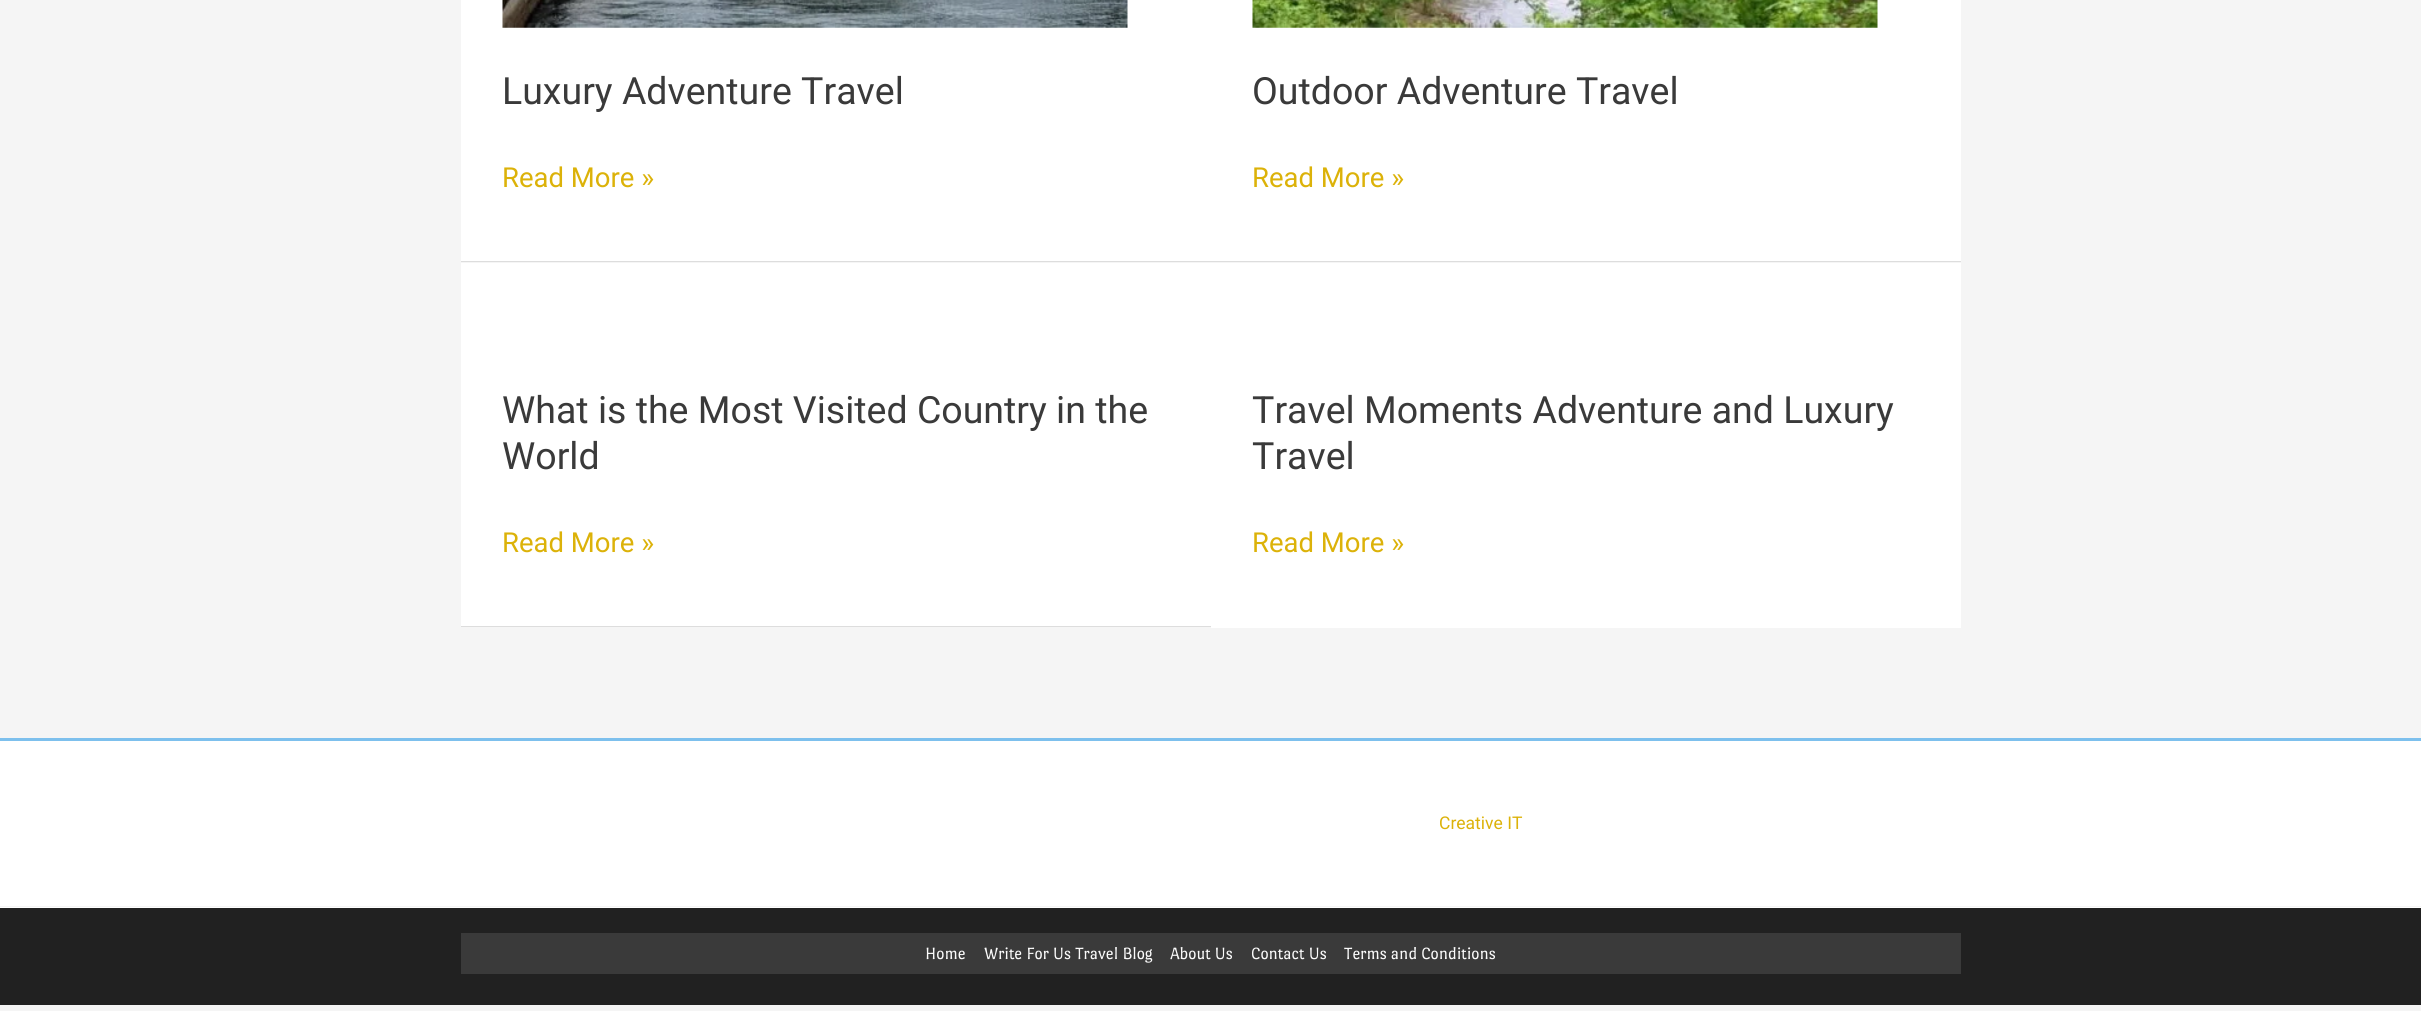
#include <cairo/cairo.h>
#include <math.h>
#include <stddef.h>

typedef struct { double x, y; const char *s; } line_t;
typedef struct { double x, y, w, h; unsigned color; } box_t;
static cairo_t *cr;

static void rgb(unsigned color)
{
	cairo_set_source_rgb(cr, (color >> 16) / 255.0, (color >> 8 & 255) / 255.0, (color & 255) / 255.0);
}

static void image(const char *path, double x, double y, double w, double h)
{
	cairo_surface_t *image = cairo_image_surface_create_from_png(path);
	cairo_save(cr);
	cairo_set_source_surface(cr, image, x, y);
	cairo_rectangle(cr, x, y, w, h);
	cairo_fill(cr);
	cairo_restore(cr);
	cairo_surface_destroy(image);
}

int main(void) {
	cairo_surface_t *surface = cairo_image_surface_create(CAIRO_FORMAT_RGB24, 2421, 1011);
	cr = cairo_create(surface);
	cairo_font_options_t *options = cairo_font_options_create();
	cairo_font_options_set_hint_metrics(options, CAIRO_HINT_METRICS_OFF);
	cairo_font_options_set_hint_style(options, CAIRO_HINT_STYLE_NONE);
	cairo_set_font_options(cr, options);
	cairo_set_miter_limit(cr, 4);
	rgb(0xf5f5f5);
	cairo_paint(cr);
	rgb(0xdddddd);
	cairo_rectangle(cr, 461, 261, 1500, 1);
	cairo_fill(cr);
	rgb(0xffffff);
	cairo_rectangle(cr, 461, 0, 1500, 261);
	cairo_fill(cr);
	image("img/1.png", 502, 0, 626, 28);
	image("img/2.png", 1252, 0, 626, 28);
	{
		static const box_t items[] = {
			{461, 626, 750, 1, 0xdddddd},
			{461, 263, 750, 363, 0xffffff},
			{1211, 263, 750, 365, 0xffffff},
			{0, 741, 2421, 167, 0xffffff},
			{0, 738, 2421, 3, 0x7dc0ed},
			{0, 908, 2421, 97, 0x212121},
			{0, 906, 2421, 1, 0xf5f5f5},
			{461, 933, 1500, 41, 0x3a3a3a},
		};
		for (size_t i = 0; i < sizeof items / sizeof *items; i++) {
			rgb(items[i].color);
			cairo_rectangle(cr, items[i].x, items[i].y, items[i].w, items[i].h);
			cairo_fill(cr);
		}
	}
	cairo_select_font_face(cr, "Roboto", CAIRO_FONT_SLANT_NORMAL, CAIRO_FONT_WEIGHT_NORMAL);
	cairo_set_font_size(cr, 37.5);
	cairo_move_to(cr, 502, 104);
	cairo_show_text(cr, "Luxury Adventure Travel");
	cairo_set_font_size(cr, 27.5);
	rgb(0xdcb209);
	cairo_move_to(cr, 502, 187);
	cairo_show_text(cr, "Read More »");
	cairo_set_font_size(cr, 37.5);
	rgb(0x3a3a3a);
	cairo_move_to(cr, 1252, 104);
	cairo_show_text(cr, "Outdoor Adventure Travel");
	cairo_set_font_size(cr, 27.5);
	rgb(0xdcb209);
	cairo_move_to(cr, 1252, 187);
	cairo_show_text(cr, "Read More »");
	cairo_set_font_size(cr, 37.5);
	rgb(0x3a3a3a);
	cairo_move_to(cr, 502, 423);
	cairo_show_text(cr, "What is the Most Visited Country in the");
	cairo_move_to(cr, 502, 469);
	cairo_show_text(cr, "World");
	cairo_set_font_size(cr, 27.5);
	rgb(0xdcb209);
	cairo_move_to(cr, 502, 552);
	cairo_show_text(cr, "Read More »");
	cairo_set_font_size(cr, 37.5);
	rgb(0x3a3a3a);
	cairo_move_to(cr, 1252, 423);
	cairo_show_text(cr, "Travel Moments Adventure and Luxury");
	cairo_move_to(cr, 1252, 469);
	cairo_show_text(cr, "Travel");
	cairo_set_font_size(cr, 27.5);
	rgb(0xdcb209);
	cairo_move_to(cr, 1252, 552);
	cairo_show_text(cr, "Read More »");
	cairo_set_font_size(cr, 17.5);
	cairo_move_to(cr, 1439, 829);
	cairo_show_text(cr, "Creative IT");
	cairo_select_font_face(cr, "Port Lligat Sans", CAIRO_FONT_SLANT_NORMAL, CAIRO_FONT_WEIGHT_NORMAL);
	rgb(0xfbfbfb);
	{
		static const line_t items[] = {
			{925, 959, "Home"},
			{984, 959, "Write For Us Travel Blog"},
			{1170, 959, "About Us"},
			{1251, 959, "Contact Us"},
			{1344, 959, "Terms and Conditions"},
		};
		for (size_t i = 0; i < sizeof items / sizeof *items; i++) {
			cairo_move_to(cr, items[i].x, items[i].y);
			cairo_show_text(cr, items[i].s);
		}
	}
	cairo_surface_write_to_png(surface, "page.png");
	cairo_font_options_destroy(options);
	cairo_destroy(cr);
	cairo_surface_destroy(surface);
	return 0;
}
